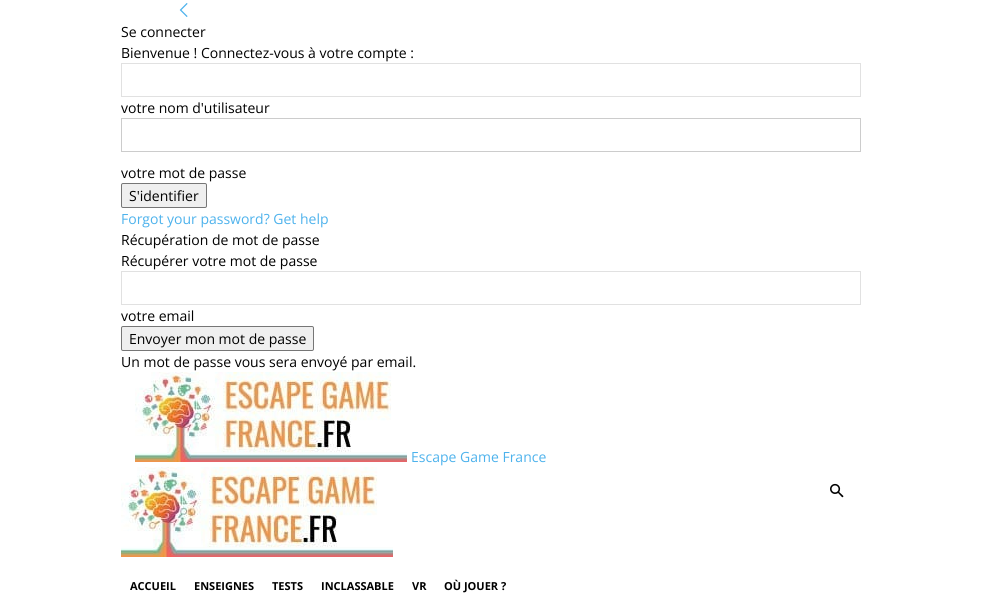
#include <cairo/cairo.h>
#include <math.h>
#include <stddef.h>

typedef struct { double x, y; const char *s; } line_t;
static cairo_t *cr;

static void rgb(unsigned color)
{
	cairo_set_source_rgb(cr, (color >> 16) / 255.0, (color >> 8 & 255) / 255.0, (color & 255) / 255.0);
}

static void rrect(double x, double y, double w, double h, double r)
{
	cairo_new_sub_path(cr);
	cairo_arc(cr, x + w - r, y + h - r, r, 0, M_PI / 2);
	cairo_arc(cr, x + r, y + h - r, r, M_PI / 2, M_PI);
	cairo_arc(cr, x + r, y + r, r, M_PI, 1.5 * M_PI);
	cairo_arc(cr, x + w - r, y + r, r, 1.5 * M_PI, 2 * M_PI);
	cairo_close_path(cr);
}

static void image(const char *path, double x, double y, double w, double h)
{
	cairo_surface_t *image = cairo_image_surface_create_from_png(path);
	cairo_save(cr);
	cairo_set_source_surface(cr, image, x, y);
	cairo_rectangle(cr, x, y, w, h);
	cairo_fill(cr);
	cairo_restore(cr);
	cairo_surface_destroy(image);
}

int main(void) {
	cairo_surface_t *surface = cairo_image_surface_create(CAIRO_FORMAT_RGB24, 982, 595);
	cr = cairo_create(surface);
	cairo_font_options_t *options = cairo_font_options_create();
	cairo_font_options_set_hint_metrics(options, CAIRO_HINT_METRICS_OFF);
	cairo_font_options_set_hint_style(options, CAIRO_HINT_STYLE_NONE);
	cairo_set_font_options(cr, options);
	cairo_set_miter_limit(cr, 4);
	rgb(0xffffff);
	cairo_paint(cr);
	image("img/1.png", 179, 3, 9, 14);
	cairo_rectangle(cr, 121.5, 63.5, 739, 33);
	rgb(0xe1e1e1);
	cairo_set_line_width(cr, 1);
	cairo_stroke(cr);
	cairo_rectangle(cr, 121.5, 118.5, 739, 33);
	rgb(0xcccccc);
	cairo_stroke(cr);
	rgb(0xefefef);
	rrect(121.5, 183.5, 85, 24, 1.5);
	cairo_fill_preserve(cr);
	rgb(0x767676);
	cairo_stroke(cr);
	cairo_rectangle(cr, 121.5, 271.5, 739, 33);
	rgb(0xe1e1e1);
	cairo_stroke(cr);
	rgb(0xefefef);
	rrect(121.5, 326.5, 192, 24, 1.5);
	cairo_fill_preserve(cr);
	rgb(0x767676);
	cairo_stroke(cr);
	image("img/2.png", 135, 372, 272, 90);
	image("img/3.png", 830, 483, 14, 15);
	image("img/2.png", 121, 467, 272, 90);
	cairo_select_font_face(cr, "Open Sans", CAIRO_FONT_SLANT_NORMAL, CAIRO_FONT_WEIGHT_NORMAL);
	cairo_set_font_size(cr, 14);
	rgb(0x000000);
	{
		static const line_t items[] = {
			{121, 37, "Se connecter"},
			{121, 58, "Bienvenue ! Connectez-vous à votre compte :"},
			{121, 113, "votre nom d'utilisateur"},
			{121, 178, "votre mot de passe"},
			{129, 201, "S'identifier"},
		};
		for (size_t i = 0; i < sizeof items / sizeof *items; i++) {
			cairo_move_to(cr, items[i].x, items[i].y);
			cairo_show_text(cr, items[i].s);
		}
	}
	rgb(0x4db2ec);
	cairo_move_to(cr, 121, 224);
	cairo_show_text(cr, "Forgot your password? Get help");
	rgb(0x000000);
	{
		static const line_t items[] = {
			{121, 245, "Récupération de mot de passe"},
			{121, 266, "Récupérer votre mot de passe"},
			{121, 321, "votre email"},
			{129, 344, "Envoyer mon mot de passe"},
			{121, 367, "Un mot de passe vous sera envoyé par email."},
		};
		for (size_t i = 0; i < sizeof items / sizeof *items; i++) {
			cairo_move_to(cr, items[i].x, items[i].y);
			cairo_show_text(cr, items[i].s);
		}
	}
	rgb(0x4db2ec);
	cairo_move_to(cr, 411, 462);
	cairo_show_text(cr, "Escape Game France");
	cairo_select_font_face(cr, "Open Sans", CAIRO_FONT_SLANT_NORMAL, CAIRO_FONT_WEIGHT_BOLD);
	cairo_set_font_size(cr, 11);
	rgb(0x000000);
	{
		static const line_t items[] = {
			{130, 590, "ACCUEIL"},
			{194, 590, "ENSEIGNES"},
			{272, 590, "TESTS"},
			{321, 590, "INCLASSABLE"},
			{412, 590, "VR"},
			{444, 590, "OÙ JOUER ?"},
		};
		for (size_t i = 0; i < sizeof items / sizeof *items; i++) {
			cairo_move_to(cr, items[i].x, items[i].y);
			cairo_show_text(cr, items[i].s);
		}
	}
	cairo_surface_write_to_png(surface, "page.png");
	cairo_font_options_destroy(options);
	cairo_destroy(cr);
	cairo_surface_destroy(surface);
	return 0;
}
